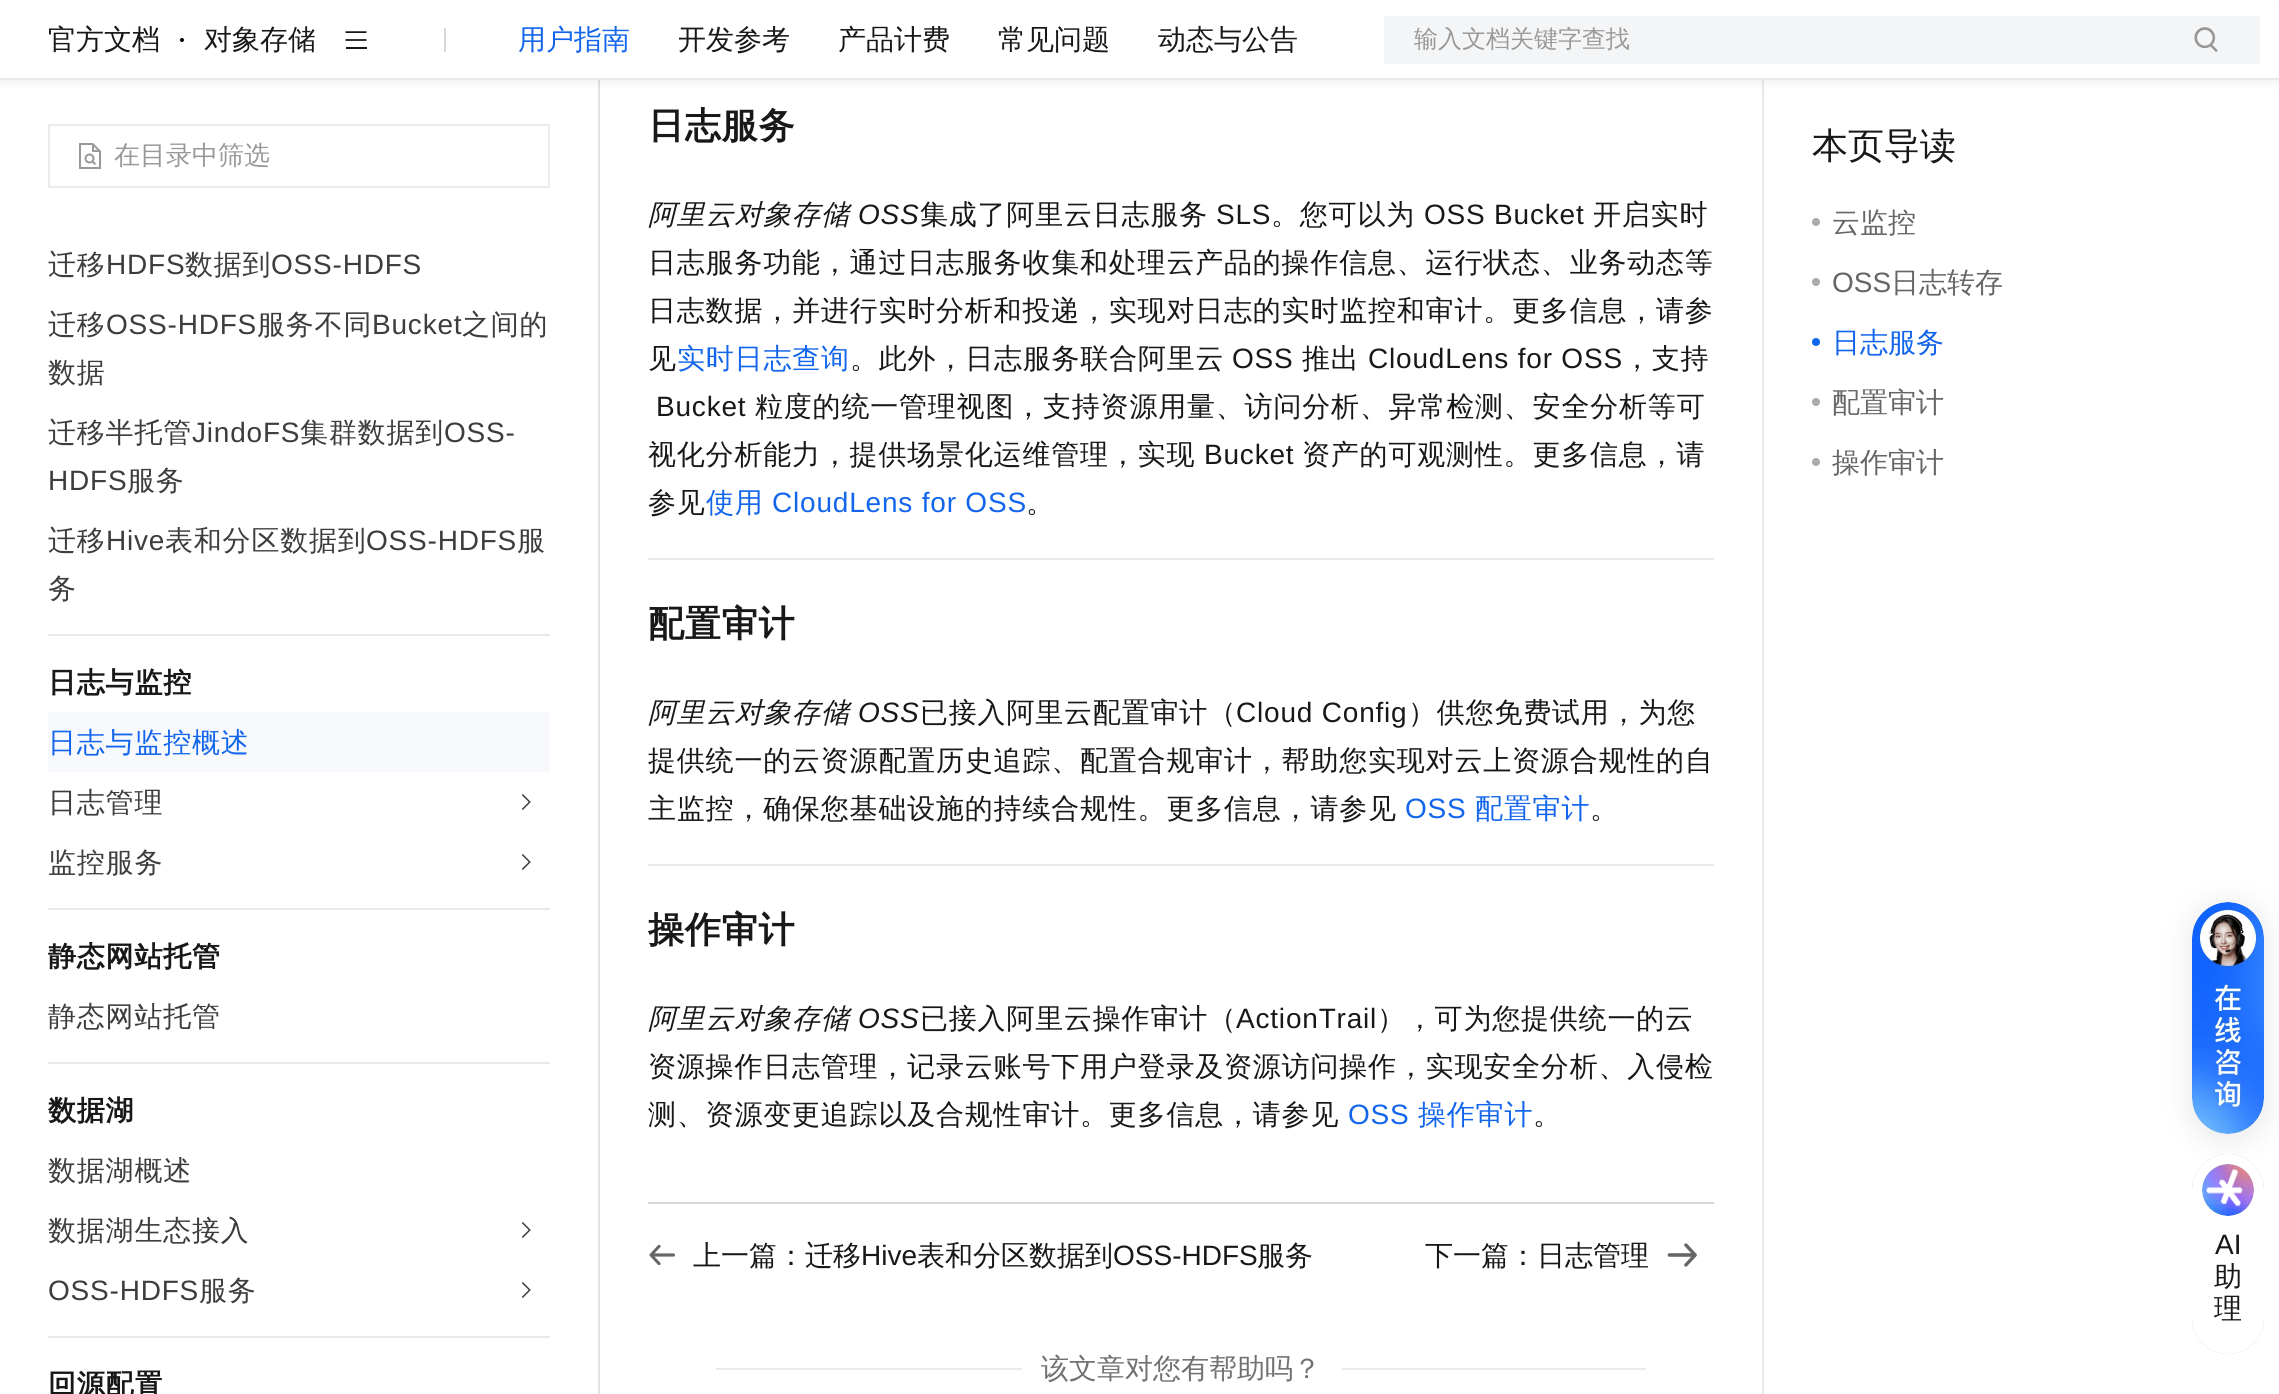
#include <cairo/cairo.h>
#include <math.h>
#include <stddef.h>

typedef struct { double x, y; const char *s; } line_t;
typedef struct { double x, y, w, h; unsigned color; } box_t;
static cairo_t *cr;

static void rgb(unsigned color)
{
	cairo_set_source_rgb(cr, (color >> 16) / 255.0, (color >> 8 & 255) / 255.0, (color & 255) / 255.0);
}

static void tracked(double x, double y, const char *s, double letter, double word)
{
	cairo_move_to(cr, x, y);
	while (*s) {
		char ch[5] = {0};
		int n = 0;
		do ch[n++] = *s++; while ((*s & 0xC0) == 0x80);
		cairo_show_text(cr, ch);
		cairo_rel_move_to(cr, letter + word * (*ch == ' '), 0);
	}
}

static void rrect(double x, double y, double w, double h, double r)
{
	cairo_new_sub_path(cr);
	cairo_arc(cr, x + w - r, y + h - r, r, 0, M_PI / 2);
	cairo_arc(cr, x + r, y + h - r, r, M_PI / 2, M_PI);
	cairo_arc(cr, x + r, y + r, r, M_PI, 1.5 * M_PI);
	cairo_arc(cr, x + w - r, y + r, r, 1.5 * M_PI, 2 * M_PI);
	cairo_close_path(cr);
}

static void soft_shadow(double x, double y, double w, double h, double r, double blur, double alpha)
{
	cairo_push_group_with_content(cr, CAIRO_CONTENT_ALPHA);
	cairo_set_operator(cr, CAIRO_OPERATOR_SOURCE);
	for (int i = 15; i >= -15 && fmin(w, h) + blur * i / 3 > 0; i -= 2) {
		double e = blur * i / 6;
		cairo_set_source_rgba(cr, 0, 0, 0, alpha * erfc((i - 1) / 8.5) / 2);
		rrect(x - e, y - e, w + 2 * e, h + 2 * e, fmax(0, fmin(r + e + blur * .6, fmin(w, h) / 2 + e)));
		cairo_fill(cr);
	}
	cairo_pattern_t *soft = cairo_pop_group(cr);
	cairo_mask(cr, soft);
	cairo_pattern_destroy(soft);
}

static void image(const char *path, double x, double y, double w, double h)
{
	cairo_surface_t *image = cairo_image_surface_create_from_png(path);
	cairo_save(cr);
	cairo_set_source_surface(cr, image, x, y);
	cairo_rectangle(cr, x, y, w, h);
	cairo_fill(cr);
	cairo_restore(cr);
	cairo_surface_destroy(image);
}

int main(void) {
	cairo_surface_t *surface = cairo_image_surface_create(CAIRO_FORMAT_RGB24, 2279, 1394);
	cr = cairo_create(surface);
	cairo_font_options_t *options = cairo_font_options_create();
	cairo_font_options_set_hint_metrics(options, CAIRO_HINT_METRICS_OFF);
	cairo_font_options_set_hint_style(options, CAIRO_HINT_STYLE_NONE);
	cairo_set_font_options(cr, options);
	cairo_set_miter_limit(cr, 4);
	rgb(0xffffff);
	cairo_paint(cr);
	rgb(0xe3e3e3);
	cairo_rectangle(cr, 598, 80, 2, 1314);
	cairo_fill(cr);
	rgb(0xe9e9e9);
	cairo_rectangle(cr, 1762, 80, 2, 1314);
	cairo_fill(cr);
	rgb(0x000000);
	soft_shadow(0, 4, 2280, 80, 0, 4, 0.05);
	{
		static const box_t items[] = {
			{0, 1, 2279, 77, 0xffffff},
			{0, 78, 2279, 2, 0xe9e9e9},
			{444, 28, 2, 24, 0xd7d8d9},
		};
		for (size_t i = 0; i < sizeof items / sizeof *items; i++) {
			rgb(items[i].color);
			cairo_rectangle(cr, items[i].x, items[i].y, items[i].w, items[i].h);
			cairo_fill(cr);
		}
	}
	rgb(0x000000);
	cairo_arc(cr, 182, 40, 2, 0, 2 * M_PI);
	cairo_fill(cr);
	image("img/1.png", 345, 31, 22, 18);
	rgb(0xf4f5f7);
	cairo_rectangle(cr, 1384, 16, 876, 48);
	cairo_fill(cr);
	image("img/2.png", 2194, 27, 24, 25);
	cairo_rectangle(cr, 49, 125, 500, 62);
	rgb(0xeaeaea);
	cairo_stroke(cr);
	image("img/3.png", 79, 143, 22, 26);
	{
		static const box_t items[] = {
			{48, 634, 502, 2, 0xe9e9e9},
			{48, 908, 502, 2, 0xe9e9e9},
			{48, 712, 502, 60, 0xf7f9fc},
		};
		for (size_t i = 0; i < sizeof items / sizeof *items; i++) {
			rgb(items[i].color);
			cairo_rectangle(cr, items[i].x, items[i].y, items[i].w, items[i].h);
			cairo_fill(cr);
		}
	}
	image("img/4.png", 521, 794, 10, 16);
	image("img/4.png", 521, 854, 10, 16);
	rgb(0xe9e9e9);
	cairo_rectangle(cr, 48, 1062, 502, 2);
	cairo_fill(cr);
	cairo_rectangle(cr, 48, 1336, 502, 2);
	cairo_fill(cr);
	image("img/4.png", 521, 1222, 10, 16);
	image("img/4.png", 521, 1282, 10, 16);
	{
		static const box_t items[] = {
			{648, 558, 1066, 2, 0xe9e9e9},
			{648, 864, 1066, 2, 0xe9e9e9},
			{648, 1202, 1066, 2, 0xd7d8d9},
		};
		for (size_t i = 0; i < sizeof items / sizeof *items; i++) {
			rgb(items[i].color);
			cairo_rectangle(cr, items[i].x, items[i].y, items[i].w, items[i].h);
			cairo_fill(cr);
		}
	}
	image("img/5.png", 649, 1244, 26, 22);
	image("img/6.png", 1667, 1243, 30, 24);
	rgb(0xeaeaea);
	cairo_rectangle(cr, 716, 1368, 306, 2);
	cairo_fill(cr);
	cairo_rectangle(cr, 1342, 1368, 304, 2);
	cairo_fill(cr);
	rgb(0xababab);
	cairo_arc(cr, 1816, 222, 4, 0, 2 * M_PI);
	cairo_fill(cr);
	cairo_arc(cr, 1816, 282, 4, 0, 2 * M_PI);
	cairo_fill(cr);
	rgb(0x1366ec);
	cairo_arc(cr, 1816, 342, 4, 0, 2 * M_PI);
	cairo_fill(cr);
	rgb(0xababab);
	cairo_arc(cr, 1816, 402, 4, 0, 2 * M_PI);
	cairo_fill(cr);
	cairo_arc(cr, 1816, 462, 4, 0, 2 * M_PI);
	cairo_fill(cr);
	rgb(0x000000);
	soft_shadow(2192, 906, 72, 232, 36, 15, 0.1);
	image("img/7.png", 2192, 902, 72, 232);
	cairo_save(cr);
	rrect(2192, 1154, 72, 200, 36);
	cairo_clip(cr);
	rgb(0x25a5ff);
	soft_shadow(2092, 1054, 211, 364, 0, 8, 0.25);
	rgb(0x7b47ff);
	soft_shadow(2092, 1054, 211, 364, 0, 8, 0.1);
	rgb(0xff6432);
	soft_shadow(2092, 1054, 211, 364, 0, 8, 0.09);
	rgb(0x1548ff);
	soft_shadow(2092, 1054, 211, 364, 0, 8, 0.08);
	cairo_restore(cr);
	rgb(0xffffff);
	rrect(2192, 1154, 72, 200, 36);
	cairo_fill(cr);
	image("img/8.png", 2202, 1164, 52, 52);
	image("img/9.png", 2206, 1169, 37, 38);
	cairo_select_font_face(cr, "WenQuanYi Zen Hei Medium", CAIRO_FONT_SLANT_NORMAL, CAIRO_FONT_WEIGHT_NORMAL);
	cairo_set_font_size(cr, 28);
	rgb(0x181818);
	cairo_move_to(cr, 48, 49);
	cairo_show_text(cr, "官方文档");
	cairo_move_to(cr, 204, 49);
	cairo_show_text(cr, "对象存储");
	rgb(0x1366ec);
	cairo_move_to(cr, 518, 49);
	cairo_show_text(cr, "用户指南");
	rgb(0x181818);
	{
		static const line_t items[] = {
			{678, 49, "开发参考"},
			{838, 49, "产品计费"},
			{998, 49, "常见问题"},
			{1158, 49, "动态与公告"},
		};
		for (size_t i = 0; i < sizeof items / sizeof *items; i++) {
			cairo_move_to(cr, items[i].x, items[i].y);
			cairo_show_text(cr, items[i].s);
		}
	}
	cairo_set_font_size(cr, 24);
	rgb(0x999999);
	cairo_move_to(cr, 1414, 47);
	cairo_show_text(cr, "输入文档关键字查找");
	cairo_set_font_size(cr, 26);
	cairo_move_to(cr, 114, 164);
	cairo_show_text(cr, "在目录中筛选");
	cairo_set_font_size(cr, 28);
	rgb(0x3d3d3d);
	tracked(48, 274, "迁移", 0.8, 0);
	cairo_select_font_face(cr, "Liberation Sans", CAIRO_FONT_SLANT_NORMAL, CAIRO_FONT_WEIGHT_NORMAL);
	tracked(106, 274, "HDFS", 0.8, 0);
	cairo_select_font_face(cr, "WenQuanYi Zen Hei Medium", CAIRO_FONT_SLANT_NORMAL, CAIRO_FONT_WEIGHT_NORMAL);
	tracked(185, 274, "数据到", 0.8, 0);
	cairo_select_font_face(cr, "Liberation Sans", CAIRO_FONT_SLANT_NORMAL, CAIRO_FONT_WEIGHT_NORMAL);
	tracked(271, 274, "OSS-HDFS", 0.8, 0);
	cairo_select_font_face(cr, "WenQuanYi Zen Hei Medium", CAIRO_FONT_SLANT_NORMAL, CAIRO_FONT_WEIGHT_NORMAL);
	tracked(48, 334, "迁移", 0.8, 0);
	cairo_select_font_face(cr, "Liberation Sans", CAIRO_FONT_SLANT_NORMAL, CAIRO_FONT_WEIGHT_NORMAL);
	tracked(106, 334, "OSS-HDFS", 0.8, 0);
	cairo_select_font_face(cr, "WenQuanYi Zen Hei Medium", CAIRO_FONT_SLANT_NORMAL, CAIRO_FONT_WEIGHT_NORMAL);
	tracked(257, 334, "服务不同", 0.8, 0);
	cairo_select_font_face(cr, "Liberation Sans", CAIRO_FONT_SLANT_NORMAL, CAIRO_FONT_WEIGHT_NORMAL);
	tracked(372, 334, "Bucket", 0.8, 0);
	cairo_select_font_face(cr, "WenQuanYi Zen Hei Medium", CAIRO_FONT_SLANT_NORMAL, CAIRO_FONT_WEIGHT_NORMAL);
	{
		static const line_t items[] = {
			{462, 334, "之间的"},
			{48, 382, "数据"},
			{48, 442, "迁移半托管"},
		};
		for (size_t i = 0; i < sizeof items / sizeof *items; i++) {
			tracked(items[i].x, items[i].y, items[i].s, 0.8, 0);
		}
	}
	cairo_select_font_face(cr, "Liberation Sans", CAIRO_FONT_SLANT_NORMAL, CAIRO_FONT_WEIGHT_NORMAL);
	tracked(192, 442, "JindoFS", 0.8, 0);
	cairo_select_font_face(cr, "WenQuanYi Zen Hei Medium", CAIRO_FONT_SLANT_NORMAL, CAIRO_FONT_WEIGHT_NORMAL);
	tracked(300, 442, "集群数据到", 0.8, 0);
	cairo_select_font_face(cr, "Liberation Sans", CAIRO_FONT_SLANT_NORMAL, CAIRO_FONT_WEIGHT_NORMAL);
	tracked(444, 442, "OSS-", 0.8, 0);
	tracked(48, 490, "HDFS", 0.8, 0);
	cairo_select_font_face(cr, "WenQuanYi Zen Hei Medium", CAIRO_FONT_SLANT_NORMAL, CAIRO_FONT_WEIGHT_NORMAL);
	tracked(127, 490, "服务", 0.8, 0);
	tracked(48, 550, "迁移", 0.8, 0);
	cairo_select_font_face(cr, "Liberation Sans", CAIRO_FONT_SLANT_NORMAL, CAIRO_FONT_WEIGHT_NORMAL);
	tracked(106, 550, "Hive", 0.8, 0);
	cairo_select_font_face(cr, "WenQuanYi Zen Hei Medium", CAIRO_FONT_SLANT_NORMAL, CAIRO_FONT_WEIGHT_NORMAL);
	tracked(165, 550, "表和分区数据到", 0.8, 0);
	cairo_select_font_face(cr, "Liberation Sans", CAIRO_FONT_SLANT_NORMAL, CAIRO_FONT_WEIGHT_NORMAL);
	tracked(366, 550, "OSS-HDFS", 0.8, 0);
	cairo_select_font_face(cr, "WenQuanYi Zen Hei Medium", CAIRO_FONT_SLANT_NORMAL, CAIRO_FONT_WEIGHT_NORMAL);
	tracked(517, 550, "服", 0.8, 0);
	tracked(48, 598, "务", 0.8, 0);
	cairo_select_font_face(cr, "WenQuanYi Zen Hei", CAIRO_FONT_SLANT_NORMAL, CAIRO_FONT_WEIGHT_BOLD);
	rgb(0x181818);
	tracked(48, 692, "日志与监控", 0.8, 0);
	cairo_select_font_face(cr, "WenQuanYi Zen Hei Medium", CAIRO_FONT_SLANT_NORMAL, CAIRO_FONT_WEIGHT_NORMAL);
	rgb(0x1366ec);
	tracked(48, 752, "日志与监控概述", 0.8, 0);
	rgb(0x3d3d3d);
	tracked(48, 812, "日志管理", 0.8, 0);
	tracked(48, 872, "监控服务", 0.8, 0);
	cairo_select_font_face(cr, "WenQuanYi Zen Hei", CAIRO_FONT_SLANT_NORMAL, CAIRO_FONT_WEIGHT_BOLD);
	rgb(0x181818);
	tracked(48, 966, "静态网站托管", 0.8, 0);
	cairo_select_font_face(cr, "WenQuanYi Zen Hei Medium", CAIRO_FONT_SLANT_NORMAL, CAIRO_FONT_WEIGHT_NORMAL);
	rgb(0x3d3d3d);
	tracked(48, 1026, "静态网站托管", 0.8, 0);
	cairo_select_font_face(cr, "WenQuanYi Zen Hei", CAIRO_FONT_SLANT_NORMAL, CAIRO_FONT_WEIGHT_BOLD);
	rgb(0x181818);
	tracked(48, 1120, "数据湖", 0.8, 0);
	cairo_select_font_face(cr, "WenQuanYi Zen Hei Medium", CAIRO_FONT_SLANT_NORMAL, CAIRO_FONT_WEIGHT_NORMAL);
	rgb(0x3d3d3d);
	tracked(48, 1180, "数据湖概述", 0.8, 0);
	tracked(48, 1240, "数据湖生态接入", 0.8, 0);
	cairo_select_font_face(cr, "Liberation Sans", CAIRO_FONT_SLANT_NORMAL, CAIRO_FONT_WEIGHT_NORMAL);
	tracked(48, 1300, "OSS-HDFS", 0.8, 0);
	cairo_select_font_face(cr, "WenQuanYi Zen Hei Medium", CAIRO_FONT_SLANT_NORMAL, CAIRO_FONT_WEIGHT_NORMAL);
	tracked(199, 1300, "服务", 0.8, 0);
	cairo_select_font_face(cr, "WenQuanYi Zen Hei", CAIRO_FONT_SLANT_NORMAL, CAIRO_FONT_WEIGHT_BOLD);
	rgb(0x181818);
	tracked(48, 1394, "回源配置", 0.8, 0);
	cairo_set_font_size(cr, 36);
	tracked(648, 138, "日志服务", 0.8, 0);
	cairo_select_font_face(cr, "WenQuanYi Zen Hei Medium", CAIRO_FONT_SLANT_ITALIC, CAIRO_FONT_WEIGHT_NORMAL);
	cairo_set_font_size(cr, 28);
	tracked(648, 224, "阿里云对象存储", 0.8, 0);
	cairo_select_font_face(cr, "Liberation Sans", CAIRO_FONT_SLANT_ITALIC, CAIRO_FONT_WEIGHT_NORMAL);
	tracked(858, 224, "OSS", 0.8, 0);
	cairo_select_font_face(cr, "WenQuanYi Zen Hei Medium", CAIRO_FONT_SLANT_NORMAL, CAIRO_FONT_WEIGHT_NORMAL);
	tracked(920, 224, "集成了阿里云日志服务", 0.8, 0);
	cairo_select_font_face(cr, "Liberation Sans", CAIRO_FONT_SLANT_NORMAL, CAIRO_FONT_WEIGHT_NORMAL);
	tracked(1216, 224, "SLS", 0.8, 0);
	cairo_select_font_face(cr, "WenQuanYi Zen Hei Medium", CAIRO_FONT_SLANT_NORMAL, CAIRO_FONT_WEIGHT_NORMAL);
	tracked(1271, 224, "。您可以为", 0.8, 0);
	cairo_select_font_face(cr, "Liberation Sans", CAIRO_FONT_SLANT_NORMAL, CAIRO_FONT_WEIGHT_NORMAL);
	tracked(1424, 224, "OSS Bucket", 0.8, 0);
	cairo_select_font_face(cr, "WenQuanYi Zen Hei Medium", CAIRO_FONT_SLANT_NORMAL, CAIRO_FONT_WEIGHT_NORMAL);
	{
		static const line_t items[] = {
			{1593, 224, "开启实时"},
			{648, 272, "日志服务功能，通过日志服务收集和处理云产品的操作信息、运行状态、业务动态等"},
			{648, 320, "日志数据，并进行实时分析和投递，实现对日志的实时监控和审计。更多信息，请参"},
			{648, 368, "见"},
		};
		for (size_t i = 0; i < sizeof items / sizeof *items; i++) {
			tracked(items[i].x, items[i].y, items[i].s, 0.8, 0);
		}
	}
	rgb(0x1366ec);
	tracked(677, 368, "实时日志查询", 0.8, 0);
	rgb(0x181818);
	tracked(850, 368, "。此外，日志服务联合阿里云", 0.8, 0);
	cairo_select_font_face(cr, "Liberation Sans", CAIRO_FONT_SLANT_NORMAL, CAIRO_FONT_WEIGHT_NORMAL);
	tracked(1232, 368, "OSS", 0.8, 0);
	cairo_select_font_face(cr, "WenQuanYi Zen Hei Medium", CAIRO_FONT_SLANT_NORMAL, CAIRO_FONT_WEIGHT_NORMAL);
	tracked(1302, 368, "推出", 0.8, 0);
	cairo_select_font_face(cr, "Liberation Sans", CAIRO_FONT_SLANT_NORMAL, CAIRO_FONT_WEIGHT_NORMAL);
	tracked(1368, 368, "CloudLens for OSS", 0.8, 0);
	cairo_select_font_face(cr, "WenQuanYi Zen Hei Medium", CAIRO_FONT_SLANT_NORMAL, CAIRO_FONT_WEIGHT_NORMAL);
	tracked(1623, 368, "，支持", 0.8, 0);
	cairo_select_font_face(cr, "Liberation Sans", CAIRO_FONT_SLANT_NORMAL, CAIRO_FONT_WEIGHT_NORMAL);
	tracked(656, 416, "Bucket", 0.8, 0);
	cairo_select_font_face(cr, "WenQuanYi Zen Hei Medium", CAIRO_FONT_SLANT_NORMAL, CAIRO_FONT_WEIGHT_NORMAL);
	tracked(755, 416, "粒度的统一管理视图，支持资源用量、访问分析、异常检测、安全分析等可", 0.8, 0);
	tracked(648, 464, "视化分析能力，提供场景化运维管理，实现", 0.8, 0);
	cairo_select_font_face(cr, "Liberation Sans", CAIRO_FONT_SLANT_NORMAL, CAIRO_FONT_WEIGHT_NORMAL);
	tracked(1204, 464, "Bucket", 0.8, 0);
	cairo_select_font_face(cr, "WenQuanYi Zen Hei Medium", CAIRO_FONT_SLANT_NORMAL, CAIRO_FONT_WEIGHT_NORMAL);
	tracked(1302, 464, "资产的可观测性。更多信息，请", 0.8, 0);
	tracked(648, 512, "参见", 0.8, 0);
	rgb(0x1366ec);
	tracked(706, 512, "使用", 0.8, 0);
	cairo_select_font_face(cr, "Liberation Sans", CAIRO_FONT_SLANT_NORMAL, CAIRO_FONT_WEIGHT_NORMAL);
	tracked(772, 512, "CloudLens for OSS", 0.8, 0);
	cairo_select_font_face(cr, "WenQuanYi Zen Hei Medium", CAIRO_FONT_SLANT_NORMAL, CAIRO_FONT_WEIGHT_NORMAL);
	rgb(0x181818);
	tracked(1026, 512, "。", 0.8, 0);
	cairo_select_font_face(cr, "WenQuanYi Zen Hei", CAIRO_FONT_SLANT_NORMAL, CAIRO_FONT_WEIGHT_BOLD);
	cairo_set_font_size(cr, 36);
	tracked(648, 636, "配置审计", 0.8, 0);
	cairo_select_font_face(cr, "WenQuanYi Zen Hei Medium", CAIRO_FONT_SLANT_ITALIC, CAIRO_FONT_WEIGHT_NORMAL);
	cairo_set_font_size(cr, 28);
	tracked(648, 722, "阿里云对象存储", 0.8, 0);
	cairo_select_font_face(cr, "Liberation Sans", CAIRO_FONT_SLANT_ITALIC, CAIRO_FONT_WEIGHT_NORMAL);
	tracked(858, 722, "OSS", 0.8, 0);
	cairo_select_font_face(cr, "WenQuanYi Zen Hei Medium", CAIRO_FONT_SLANT_NORMAL, CAIRO_FONT_WEIGHT_NORMAL);
	tracked(920, 722, "已接入阿里云配置审计（", 0.8, 0);
	cairo_select_font_face(cr, "Liberation Sans", CAIRO_FONT_SLANT_NORMAL, CAIRO_FONT_WEIGHT_NORMAL);
	tracked(1236, 722, "Cloud Config", 0.8, 0);
	cairo_select_font_face(cr, "WenQuanYi Zen Hei Medium", CAIRO_FONT_SLANT_NORMAL, CAIRO_FONT_WEIGHT_NORMAL);
	{
		static const line_t items[] = {
			{1408, 722, "）供您免费试用，为您"},
			{648, 770, "提供统一的云资源配置历史追踪、配置合规审计，帮助您实现对云上资源合规性的自"},
			{648, 818, "主监控，确保您基础设施的持续合规性。更多信息，请参见"},
		};
		for (size_t i = 0; i < sizeof items / sizeof *items; i++) {
			tracked(items[i].x, items[i].y, items[i].s, 0.8, 0);
		}
	}
	cairo_select_font_face(cr, "Liberation Sans", CAIRO_FONT_SLANT_NORMAL, CAIRO_FONT_WEIGHT_NORMAL);
	rgb(0x1366ec);
	tracked(1405, 818, "OSS", 0.8, 0);
	cairo_select_font_face(cr, "WenQuanYi Zen Hei Medium", CAIRO_FONT_SLANT_NORMAL, CAIRO_FONT_WEIGHT_NORMAL);
	tracked(1475, 818, "配置审计", 0.8, 0);
	rgb(0x181818);
	tracked(1590, 818, "。", 0.8, 0);
	cairo_select_font_face(cr, "WenQuanYi Zen Hei", CAIRO_FONT_SLANT_NORMAL, CAIRO_FONT_WEIGHT_BOLD);
	cairo_set_font_size(cr, 36);
	tracked(648, 942, "操作审计", 0.8, 0);
	cairo_select_font_face(cr, "WenQuanYi Zen Hei Medium", CAIRO_FONT_SLANT_ITALIC, CAIRO_FONT_WEIGHT_NORMAL);
	cairo_set_font_size(cr, 28);
	tracked(648, 1028, "阿里云对象存储", 0.8, 0);
	cairo_select_font_face(cr, "Liberation Sans", CAIRO_FONT_SLANT_ITALIC, CAIRO_FONT_WEIGHT_NORMAL);
	tracked(858, 1028, "OSS", 0.8, 0);
	cairo_select_font_face(cr, "WenQuanYi Zen Hei Medium", CAIRO_FONT_SLANT_NORMAL, CAIRO_FONT_WEIGHT_NORMAL);
	tracked(920, 1028, "已接入阿里云操作审计（", 0.8, 0);
	cairo_select_font_face(cr, "Liberation Sans", CAIRO_FONT_SLANT_NORMAL, CAIRO_FONT_WEIGHT_NORMAL);
	tracked(1236, 1028, "ActionTrail", 0.8, 0);
	cairo_select_font_face(cr, "WenQuanYi Zen Hei Medium", CAIRO_FONT_SLANT_NORMAL, CAIRO_FONT_WEIGHT_NORMAL);
	{
		static const line_t items[] = {
			{1377, 1028, "），可为您提供统一的云"},
			{648, 1076, "资源操作日志管理，记录云账号下用户登录及资源访问操作，实现安全分析、入侵检"},
			{648, 1124, "测、资源变更追踪以及合规性审计。更多信息，请参见"},
		};
		for (size_t i = 0; i < sizeof items / sizeof *items; i++) {
			tracked(items[i].x, items[i].y, items[i].s, 0.8, 0);
		}
	}
	cairo_select_font_face(cr, "Liberation Sans", CAIRO_FONT_SLANT_NORMAL, CAIRO_FONT_WEIGHT_NORMAL);
	rgb(0x1366ec);
	tracked(1348, 1124, "OSS", 0.8, 0);
	cairo_select_font_face(cr, "WenQuanYi Zen Hei Medium", CAIRO_FONT_SLANT_NORMAL, CAIRO_FONT_WEIGHT_NORMAL);
	tracked(1418, 1124, "操作审计", 0.8, 0);
	rgb(0x181818);
	tracked(1533, 1124, "。", 0.8, 0);
	cairo_move_to(cr, 693, 1265);
	cairo_show_text(cr, "上一篇：迁移");
	cairo_select_font_face(cr, "Liberation Sans", CAIRO_FONT_SLANT_NORMAL, CAIRO_FONT_WEIGHT_NORMAL);
	cairo_move_to(cr, 861, 1265);
	cairo_show_text(cr, "Hive");
	cairo_select_font_face(cr, "WenQuanYi Zen Hei Medium", CAIRO_FONT_SLANT_NORMAL, CAIRO_FONT_WEIGHT_NORMAL);
	cairo_move_to(cr, 917, 1265);
	cairo_show_text(cr, "表和分区数据到");
	cairo_select_font_face(cr, "Liberation Sans", CAIRO_FONT_SLANT_NORMAL, CAIRO_FONT_WEIGHT_NORMAL);
	cairo_move_to(cr, 1113, 1265);
	cairo_show_text(cr, "OSS-HDFS");
	cairo_select_font_face(cr, "WenQuanYi Zen Hei Medium", CAIRO_FONT_SLANT_NORMAL, CAIRO_FONT_WEIGHT_NORMAL);
	cairo_move_to(cr, 1257, 1265);
	cairo_show_text(cr, "服务");
	cairo_move_to(cr, 1425, 1265);
	cairo_show_text(cr, "下一篇：日志管理");
	rgb(0x717171);
	cairo_move_to(cr, 1041, 1378);
	cairo_show_text(cr, "该文章对您有帮助吗？");
	cairo_set_font_size(cr, 36);
	rgb(0x181818);
	cairo_move_to(cr, 1812, 158);
	cairo_show_text(cr, "本页导读");
	cairo_set_font_size(cr, 28);
	rgb(0x666666);
	cairo_move_to(cr, 1832, 232);
	cairo_show_text(cr, "云监控");
	cairo_select_font_face(cr, "Liberation Sans", CAIRO_FONT_SLANT_NORMAL, CAIRO_FONT_WEIGHT_NORMAL);
	cairo_move_to(cr, 1832, 292);
	cairo_show_text(cr, "OSS");
	cairo_select_font_face(cr, "WenQuanYi Zen Hei Medium", CAIRO_FONT_SLANT_NORMAL, CAIRO_FONT_WEIGHT_NORMAL);
	cairo_move_to(cr, 1891, 292);
	cairo_show_text(cr, "日志转存");
	rgb(0x1366ec);
	cairo_move_to(cr, 1832, 352);
	cairo_show_text(cr, "日志服务");
	rgb(0x666666);
	cairo_move_to(cr, 1832, 412);
	cairo_show_text(cr, "配置审计");
	cairo_move_to(cr, 1832, 472);
	cairo_show_text(cr, "操作审计");
	cairo_select_font_face(cr, "Liberation Sans", CAIRO_FONT_SLANT_NORMAL, CAIRO_FONT_WEIGHT_NORMAL);
	rgb(0x181818);
	cairo_move_to(cr, 2215, 1254);
	cairo_show_text(cr, "AI");
	cairo_select_font_face(cr, "WenQuanYi Zen Hei Medium", CAIRO_FONT_SLANT_NORMAL, CAIRO_FONT_WEIGHT_NORMAL);
	cairo_move_to(cr, 2214, 1286);
	cairo_show_text(cr, "助");
	cairo_move_to(cr, 2214, 1318);
	cairo_show_text(cr, "理");
	cairo_surface_write_to_png(surface, "page.png");
	cairo_font_options_destroy(options);
	cairo_destroy(cr);
	cairo_surface_destroy(surface);
	return 0;
}
